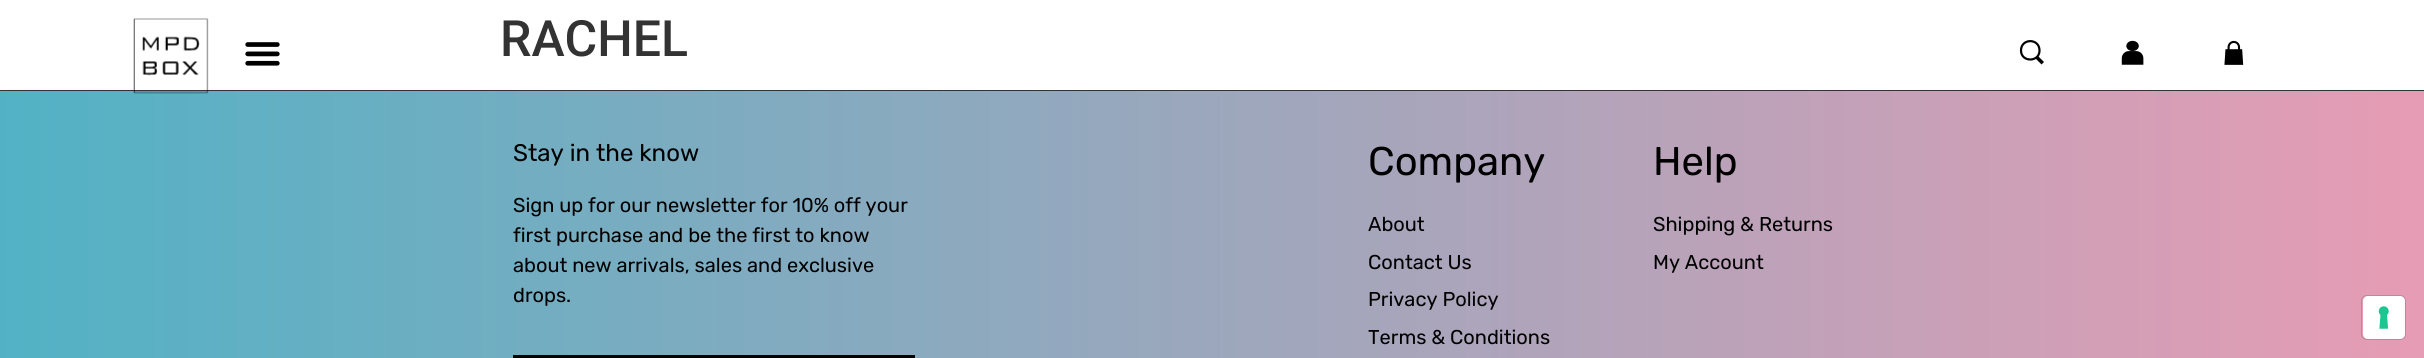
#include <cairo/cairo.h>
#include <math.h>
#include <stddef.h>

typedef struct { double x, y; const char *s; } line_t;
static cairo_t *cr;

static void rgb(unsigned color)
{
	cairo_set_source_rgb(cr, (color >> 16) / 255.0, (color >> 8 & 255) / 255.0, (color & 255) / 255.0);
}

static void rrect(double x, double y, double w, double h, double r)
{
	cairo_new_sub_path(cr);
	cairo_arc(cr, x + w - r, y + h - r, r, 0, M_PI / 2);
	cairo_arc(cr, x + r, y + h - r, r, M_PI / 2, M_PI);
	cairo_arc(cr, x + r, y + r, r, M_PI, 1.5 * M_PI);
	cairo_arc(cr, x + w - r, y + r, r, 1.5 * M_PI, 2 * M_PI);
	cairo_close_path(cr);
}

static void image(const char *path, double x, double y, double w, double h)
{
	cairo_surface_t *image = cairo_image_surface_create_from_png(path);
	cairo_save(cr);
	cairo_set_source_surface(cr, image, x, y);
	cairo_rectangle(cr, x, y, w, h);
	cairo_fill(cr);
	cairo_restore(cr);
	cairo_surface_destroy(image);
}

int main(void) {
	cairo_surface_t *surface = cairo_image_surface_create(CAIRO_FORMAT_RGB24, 2424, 358);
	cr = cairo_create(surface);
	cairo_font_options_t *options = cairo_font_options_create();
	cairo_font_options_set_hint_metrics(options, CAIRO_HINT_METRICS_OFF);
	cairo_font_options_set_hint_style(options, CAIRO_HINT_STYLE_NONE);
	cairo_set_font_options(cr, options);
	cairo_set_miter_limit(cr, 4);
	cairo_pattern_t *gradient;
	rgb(0xffffff);
	cairo_paint(cr);
	gradient = cairo_pattern_create_linear(0, 269, 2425, 269);
	cairo_pattern_add_color_stop_rgba(gradient, 0, 0.322, 0.698, 0.773, 1);
	cairo_pattern_add_color_stop_rgba(gradient, 1, 0.902, 0.612, 0.706, 1);
	cairo_set_source(cr, gradient);
	cairo_pattern_destroy(gradient);
	cairo_rectangle(cr, 0, 91, 2424, 267);
	cairo_fill(cr);
	rgb(0x333333);
	cairo_rectangle(cr, 0, 90, 2424, 1);
	cairo_fill(cr);
	image("img/1.png", 133, 18, 76, 76);
	image("img/2.png", 245, 42, 35, 24);
	cairo_new_path(cr);
	cairo_move_to(cr, 2039.5, 50.5);
	cairo_curve_to(cr, 2039.5, 62.5, 2021, 62.5, 2021, 50.5);
	cairo_curve_to(cr, 2021, 38, 2039.5, 38, 2039.5, 50.5);
	cairo_close_path(cr);
	rgb(0x000000);
	cairo_set_line_width(cr, 2.2);
	cairo_stroke(cr);
	cairo_set_fill_rule(cr, CAIRO_FILL_RULE_EVEN_ODD);
	cairo_new_path(cr);
	cairo_move_to(cr, 2041.5, 64.5);
	cairo_line_to(cr, 2035.5, 58.5);
	cairo_line_to(cr, 2038, 56);
	cairo_line_to(cr, 2044, 62);
	cairo_close_path(cr);
	cairo_fill(cr);
	image("img/3.png", 2121, 40, 23, 25);
	image("img/4.png", 2224, 40, 20, 25);
	cairo_rectangle(cr, 514.5, 356.5, 399, 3);
	cairo_set_line_width(cr, 3);
	cairo_stroke(cr);
	rrect(2361.5, 295.5, 44, 44, 5.5);
	cairo_set_source_rgba(cr, 0, 0, 0, 0.15);
	cairo_set_line_width(cr, 1);
	cairo_stroke(cr);
	rgb(0xffffff);
	rrect(2363, 296, 42, 43, 5);
	cairo_fill(cr);
	image("img/5.png", 2378, 306, 11, 23);
	cairo_select_font_face(cr, "Roboto Medium", CAIRO_FONT_SLANT_NORMAL, CAIRO_FONT_WEIGHT_NORMAL);
	cairo_set_font_size(cr, 50);
	rgb(0x333333);
	cairo_move_to(cr, 500, 56);
	cairo_show_text(cr, "RACHEL");
	cairo_select_font_face(cr, "Rubik", CAIRO_FONT_SLANT_NORMAL, CAIRO_FONT_WEIGHT_NORMAL);
	cairo_set_font_size(cr, 24);
	rgb(0x000000);
	cairo_move_to(cr, 513, 161);
	cairo_show_text(cr, "Stay in the know");
	cairo_set_font_size(cr, 20);
	{
		static const line_t items[] = {
			{513, 212, "Sign up for our newsletter for 10% off your"},
			{513, 242, "first purchase and be the first to know"},
			{513, 272, "about new arrivals, sales and exclusive"},
			{513, 302, "drops."},
		};
		for (size_t i = 0; i < sizeof items / sizeof *items; i++) {
			cairo_move_to(cr, items[i].x, items[i].y);
			cairo_show_text(cr, items[i].s);
		}
	}
	cairo_set_font_size(cr, 40);
	cairo_move_to(cr, 1368, 175);
	cairo_show_text(cr, "Company");
	cairo_set_font_size(cr, 20);
	{
		static const line_t items[] = {
			{1368, 231, "About"},
			{1368, 269, "Contact Us"},
			{1368, 306, "Privacy Policy"},
			{1368, 344, "Terms & Conditions"},
		};
		for (size_t i = 0; i < sizeof items / sizeof *items; i++) {
			cairo_move_to(cr, items[i].x, items[i].y);
			cairo_show_text(cr, items[i].s);
		}
	}
	cairo_set_font_size(cr, 40);
	cairo_move_to(cr, 1653, 175);
	cairo_show_text(cr, "Help");
	cairo_set_font_size(cr, 20);
	cairo_move_to(cr, 1653, 231);
	cairo_show_text(cr, "Shipping & Returns");
	cairo_move_to(cr, 1653, 269);
	cairo_show_text(cr, "My Account");
	cairo_surface_write_to_png(surface, "page.png");
	cairo_font_options_destroy(options);
	cairo_destroy(cr);
	cairo_surface_destroy(surface);
	return 0;
}
